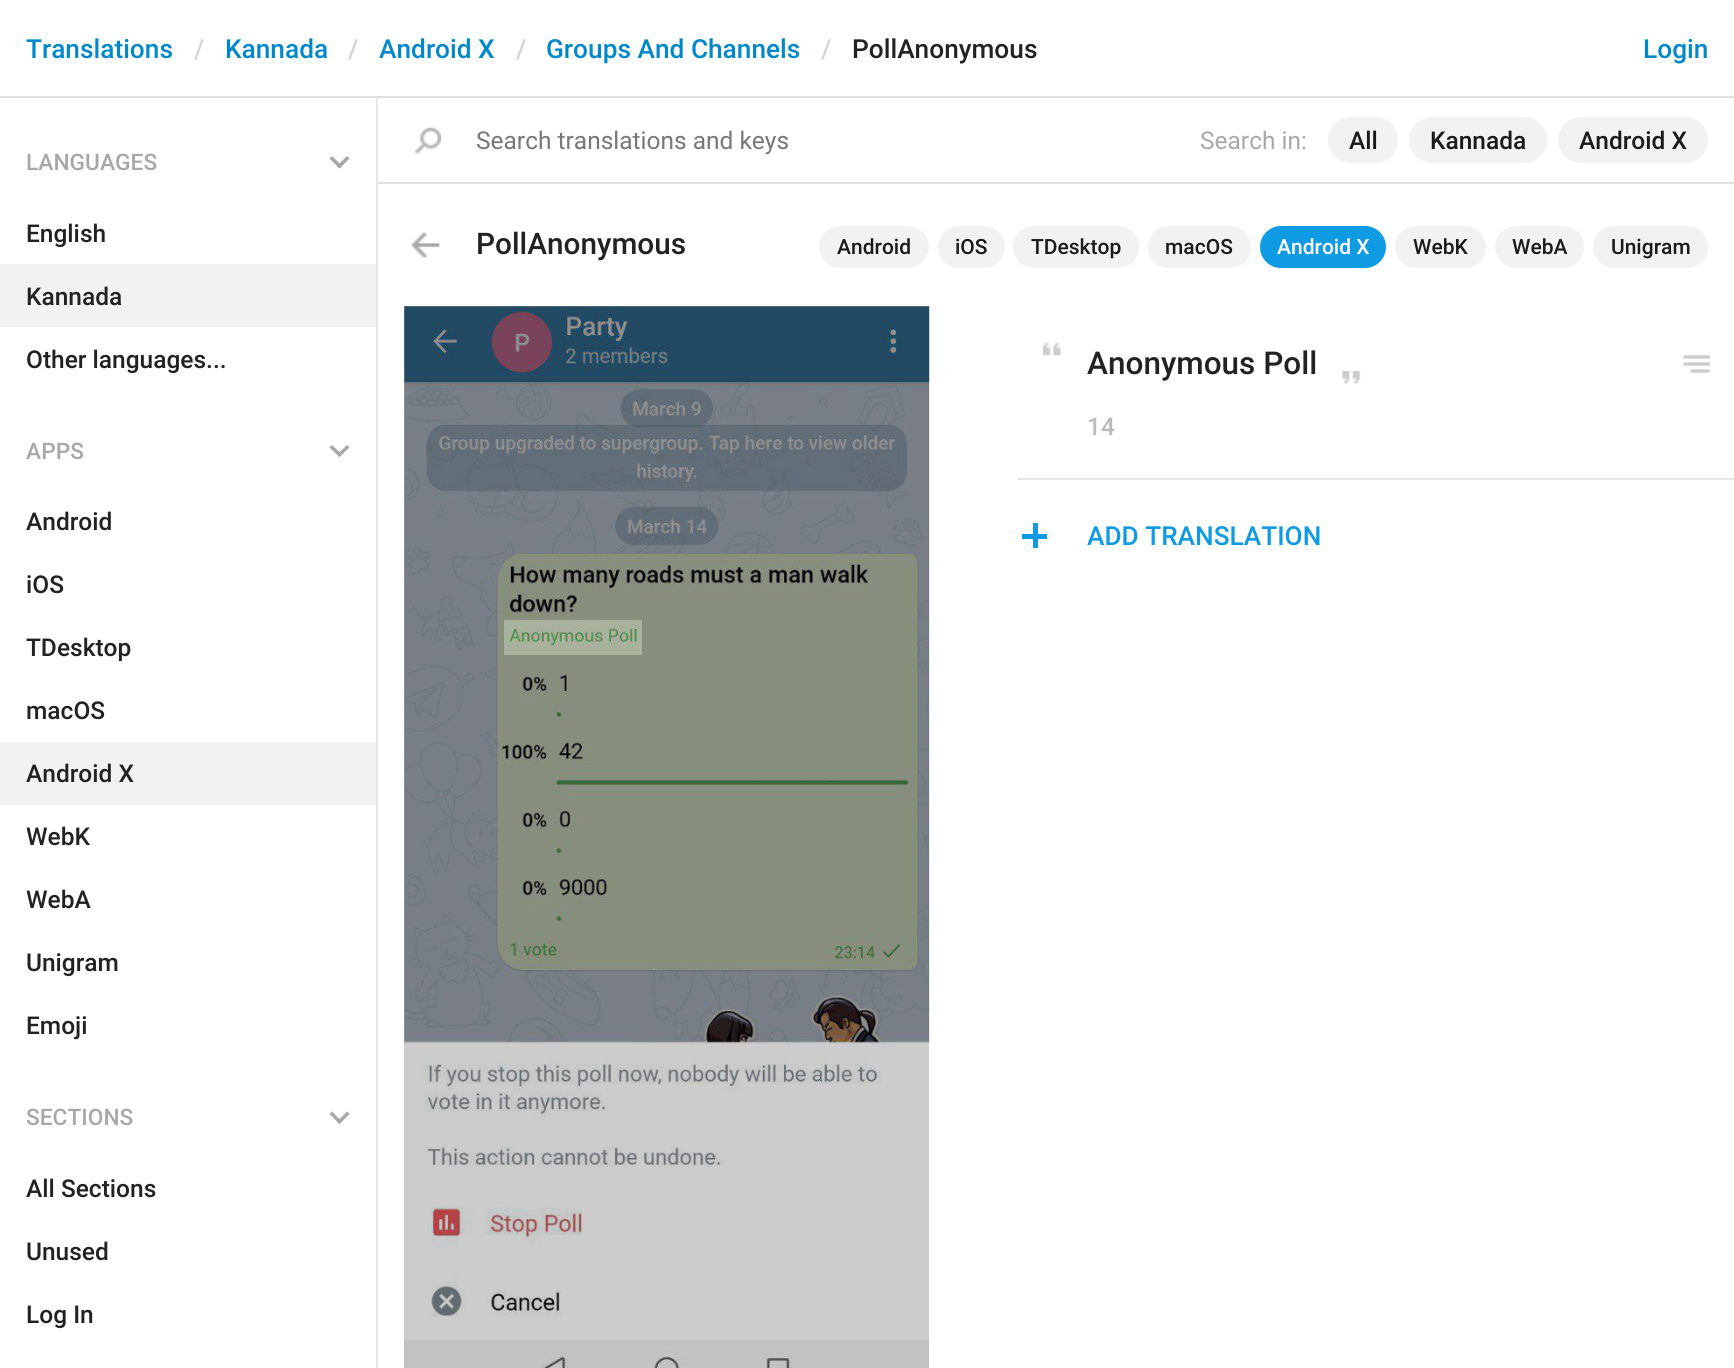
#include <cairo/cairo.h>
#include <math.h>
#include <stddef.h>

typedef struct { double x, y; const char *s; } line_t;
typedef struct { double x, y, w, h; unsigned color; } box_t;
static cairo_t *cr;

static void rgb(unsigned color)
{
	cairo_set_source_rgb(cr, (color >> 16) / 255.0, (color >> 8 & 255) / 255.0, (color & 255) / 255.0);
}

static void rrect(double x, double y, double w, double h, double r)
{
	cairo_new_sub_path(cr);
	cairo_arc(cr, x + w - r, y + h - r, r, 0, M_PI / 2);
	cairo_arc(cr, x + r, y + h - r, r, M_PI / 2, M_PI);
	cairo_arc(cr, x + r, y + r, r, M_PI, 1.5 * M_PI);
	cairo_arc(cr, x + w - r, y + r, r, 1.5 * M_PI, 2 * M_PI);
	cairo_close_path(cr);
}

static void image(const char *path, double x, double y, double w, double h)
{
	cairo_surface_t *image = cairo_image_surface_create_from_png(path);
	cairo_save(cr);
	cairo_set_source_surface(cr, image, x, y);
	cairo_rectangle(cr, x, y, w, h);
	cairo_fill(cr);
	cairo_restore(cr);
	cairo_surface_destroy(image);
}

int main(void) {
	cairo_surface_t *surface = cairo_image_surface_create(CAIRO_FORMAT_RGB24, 1734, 1368);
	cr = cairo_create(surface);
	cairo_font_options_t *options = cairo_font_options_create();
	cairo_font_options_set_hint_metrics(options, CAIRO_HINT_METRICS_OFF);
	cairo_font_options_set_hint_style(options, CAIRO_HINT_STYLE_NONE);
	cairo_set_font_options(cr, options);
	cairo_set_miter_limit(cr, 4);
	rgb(0xffffff);
	cairo_paint(cr);
	rgb(0xe0e0e0);
	cairo_rectangle(cr, 0, 96, 1734, 2);
	cairo_fill(cr);
	cairo_rectangle(cr, 378, 182, 1356, 2);
	cairo_fill(cr);
	image("img/1.png", 414, 127, 27, 27);
	rgb(0xf2f2f2);
	rrect(1328, 117, 70, 46, 23);
	cairo_fill(cr);
	rrect(1409, 117, 138, 46, 23);
	cairo_fill(cr);
	rrect(1558, 117, 150, 46, 23);
	cairo_fill(cr);
	rgb(0xa8a8a8);
	cairo_new_path(cr);
	cairo_move_to(cr, 339.5, 168.5);
	cairo_line_to(cr, 329.5, 158.5);
	cairo_line_to(cr, 332, 156);
	cairo_line_to(cr, 342, 166);
	cairo_close_path(cr);
	cairo_fill(cr);
	cairo_new_path(cr);
	cairo_move_to(cr, 339.5, 168.5);
	cairo_line_to(cr, 337, 166);
	cairo_line_to(cr, 347, 156);
	cairo_line_to(cr, 349.5, 158.5);
	cairo_close_path(cr);
	cairo_fill(cr);
	rgb(0xf2f2f2);
	cairo_rectangle(cr, 0, 264, 376, 63);
	cairo_fill(cr);
	rgb(0xa8a8a8);
	cairo_new_path(cr);
	cairo_move_to(cr, 339.5, 457);
	cairo_line_to(cr, 329.5, 447.5);
	cairo_line_to(cr, 332, 445);
	cairo_line_to(cr, 342, 454.5);
	cairo_close_path(cr);
	cairo_fill(cr);
	cairo_new_path(cr);
	cairo_move_to(cr, 339.5, 457);
	cairo_line_to(cr, 337, 454.5);
	cairo_line_to(cr, 347, 445);
	cairo_line_to(cr, 349.5, 447.5);
	cairo_close_path(cr);
	cairo_fill(cr);
	rgb(0xf2f2f2);
	cairo_rectangle(cr, 0, 742, 376, 63);
	cairo_fill(cr);
	rgb(0xa8a8a8);
	cairo_new_path(cr);
	cairo_move_to(cr, 339.5, 1124);
	cairo_line_to(cr, 329.5, 1114);
	cairo_line_to(cr, 332, 1111.5);
	cairo_line_to(cr, 342, 1121.5);
	cairo_close_path(cr);
	cairo_fill(cr);
	cairo_new_path(cr);
	cairo_move_to(cr, 339.5, 1124);
	cairo_line_to(cr, 337, 1121.5);
	cairo_line_to(cr, 347, 1111.5);
	cairo_line_to(cr, 349.5, 1114);
	cairo_close_path(cr);
	cairo_fill(cr);
	rgb(0xe7e7e7);
	cairo_rectangle(cr, 376, 98, 2, 1270);
	cairo_fill(cr);
	image("img/2.png", 411, 232, 29, 26);
	rgb(0xf2f2f2);
	rrect(819, 226, 110, 42, 21);
	cairo_fill(cr);
	rrect(938, 226, 67, 42, 21);
	cairo_fill(cr);
	rrect(1013, 226, 126, 42, 21);
	cairo_fill(cr);
	rrect(1148, 226, 103, 42, 21);
	cairo_fill(cr);
	rgb(0x0f9ae4);
	rrect(1260, 226, 126, 42, 21);
	cairo_fill(cr);
	rgb(0xf2f2f2);
	rrect(1395, 226, 91, 42, 21);
	cairo_fill(cr);
	rrect(1495, 226, 89, 42, 21);
	cairo_fill(cr);
	rrect(1593, 226, 115, 42, 21);
	cairo_fill(cr);
	rgb(0xc6c6c6);
	cairo_rectangle(cr, 404, 306, 525, 1062);
	cairo_fill(cr);
	image("img/3.png", 404, 306, 526, 1062);
	image("img/4.png", 504, 620, 138, 35);
	image("img/5.png", 1043, 342, 18, 14);
	image("img/6.png", 1342, 371, 19, 13);
	image("img/7.png", 1683, 355, 27, 18);
	{
		static const box_t items[] = {
			{1017, 478, 717, 2, 0xe7e7e7},
			{1022, 534, 25, 5, 0x0f9ae4},
			{1033, 523, 5, 25, 0x0f9ae4},
		};
		for (size_t i = 0; i < sizeof items / sizeof *items; i++) {
			rgb(items[i].color);
			cairo_rectangle(cr, items[i].x, items[i].y, items[i].w, items[i].h);
			cairo_fill(cr);
		}
	}
	cairo_select_font_face(cr, "Roboto Medium", CAIRO_FONT_SLANT_NORMAL, CAIRO_FONT_WEIGHT_NORMAL);
	cairo_set_font_size(cr, 26.25);
	rgb(0x0088cc);
	cairo_move_to(cr, 26, 58);
	cairo_show_text(cr, "Translations");
	rgb(0xd4d4d4);
	cairo_move_to(cr, 194, 58);
	cairo_show_text(cr, "/");
	rgb(0x0088cc);
	cairo_move_to(cr, 225, 58);
	cairo_show_text(cr, "Kannada");
	rgb(0xd4d4d4);
	cairo_move_to(cr, 348, 58);
	cairo_show_text(cr, "/");
	rgb(0x0088cc);
	cairo_move_to(cr, 379, 58);
	cairo_show_text(cr, "Android X");
	rgb(0xd4d4d4);
	cairo_move_to(cr, 516, 58);
	cairo_show_text(cr, "/");
	rgb(0x0088cc);
	cairo_move_to(cr, 546, 58);
	cairo_show_text(cr, "Groups And Channels");
	rgb(0xd4d4d4);
	cairo_move_to(cr, 821, 58);
	cairo_show_text(cr, "/");
	rgb(0x222222);
	cairo_move_to(cr, 852, 58);
	cairo_show_text(cr, "PollAnonymous");
	rgb(0x0088cc);
	cairo_move_to(cr, 1643, 58);
	cairo_show_text(cr, "Login");
	cairo_select_font_face(cr, "Roboto", CAIRO_FONT_SLANT_NORMAL, CAIRO_FONT_WEIGHT_NORMAL);
	cairo_set_font_size(cr, 24.5);
	rgb(0x777777);
	cairo_move_to(cr, 476, 149);
	cairo_show_text(cr, "Search translations and keys");
	rgb(0xa8a8a8);
	cairo_move_to(cr, 1200, 149);
	cairo_show_text(cr, "Search in:");
	cairo_select_font_face(cr, "Roboto Medium", CAIRO_FONT_SLANT_NORMAL, CAIRO_FONT_WEIGHT_NORMAL);
	rgb(0x1a1a1a);
	{
		static const line_t items[] = {
			{1349, 149, "All"},
			{1430, 149, "Kannada"},
			{1579, 149, "Android X"},
		};
		for (size_t i = 0; i < sizeof items / sizeof *items; i++) {
			cairo_move_to(cr, items[i].x, items[i].y);
			cairo_show_text(cr, items[i].s);
		}
	}
	cairo_set_font_size(cr, 22.75);
	rgb(0xa8a8a8);
	cairo_move_to(cr, 26, 170);
	cairo_show_text(cr, "LANGUAGES");
	cairo_set_font_size(cr, 24.5);
	rgb(0x222222);
	{
		static const line_t items[] = {
			{26, 242, "English"},
			{26, 305, "Kannada"},
			{26, 368, "Other languages..."},
		};
		for (size_t i = 0; i < sizeof items / sizeof *items; i++) {
			cairo_move_to(cr, items[i].x, items[i].y);
			cairo_show_text(cr, items[i].s);
		}
	}
	cairo_set_font_size(cr, 22.75);
	rgb(0xa8a8a8);
	cairo_move_to(cr, 26, 459);
	cairo_show_text(cr, "APPS");
	cairo_set_font_size(cr, 24.5);
	rgb(0x222222);
	{
		static const line_t items[] = {
			{26, 530, "Android"},
			{26, 593, "iOS"},
			{26, 656, "TDesktop"},
			{26, 719, "macOS"},
			{26, 782, "Android X"},
			{26, 845, "WebK"},
			{26, 908, "WebA"},
			{26, 971, "Unigram"},
			{26, 1034, "Emoji"},
		};
		for (size_t i = 0; i < sizeof items / sizeof *items; i++) {
			cairo_move_to(cr, items[i].x, items[i].y);
			cairo_show_text(cr, items[i].s);
		}
	}
	cairo_set_font_size(cr, 22.75);
	rgb(0xa8a8a8);
	cairo_move_to(cr, 26, 1125);
	cairo_show_text(cr, "SECTIONS");
	cairo_set_font_size(cr, 24.5);
	rgb(0x222222);
	{
		static const line_t items[] = {
			{26, 1197, "All Sections"},
			{26, 1260, "Unused"},
			{26, 1323, "Log In"},
		};
		for (size_t i = 0; i < sizeof items / sizeof *items; i++) {
			cairo_move_to(cr, items[i].x, items[i].y);
			cairo_show_text(cr, items[i].s);
		}
	}
	cairo_set_font_size(cr, 29.75);
	cairo_move_to(cr, 476, 254);
	cairo_show_text(cr, "PollAnonymous");
	cairo_set_font_size(cr, 21);
	rgb(0x1a1a1a);
	{
		static const line_t items[] = {
			{837, 254, "Android"},
			{955, 254, "iOS"},
			{1031, 254, "TDesktop"},
			{1165, 254, "macOS"},
		};
		for (size_t i = 0; i < sizeof items / sizeof *items; i++) {
			cairo_move_to(cr, items[i].x, items[i].y);
			cairo_show_text(cr, items[i].s);
		}
	}
	rgb(0xffffff);
	cairo_move_to(cr, 1277, 254);
	cairo_show_text(cr, "Android X");
	rgb(0x1a1a1a);
	{
		static const line_t items[] = {
			{1413, 254, "WebK"},
			{1512, 254, "WebA"},
			{1611, 254, "Unigram"},
		};
		for (size_t i = 0; i < sizeof items / sizeof *items; i++) {
			cairo_move_to(cr, items[i].x, items[i].y);
			cairo_show_text(cr, items[i].s);
		}
	}
	cairo_set_font_size(cr, 31.5);
	rgb(0x222222);
	cairo_move_to(cr, 1087, 374);
	cairo_show_text(cr, "Anonymous Poll");
	cairo_set_font_size(cr, 24.5);
	rgb(0xbbbbbb);
	cairo_move_to(cr, 1087, 435);
	cairo_show_text(cr, "14");
	cairo_set_font_size(cr, 26.25);
	rgb(0x0f9ae4);
	cairo_move_to(cr, 1087, 545);
	cairo_show_text(cr, "ADD TRANSLATION");
	cairo_surface_write_to_png(surface, "page.png");
	cairo_font_options_destroy(options);
	cairo_destroy(cr);
	cairo_surface_destroy(surface);
	return 0;
}
